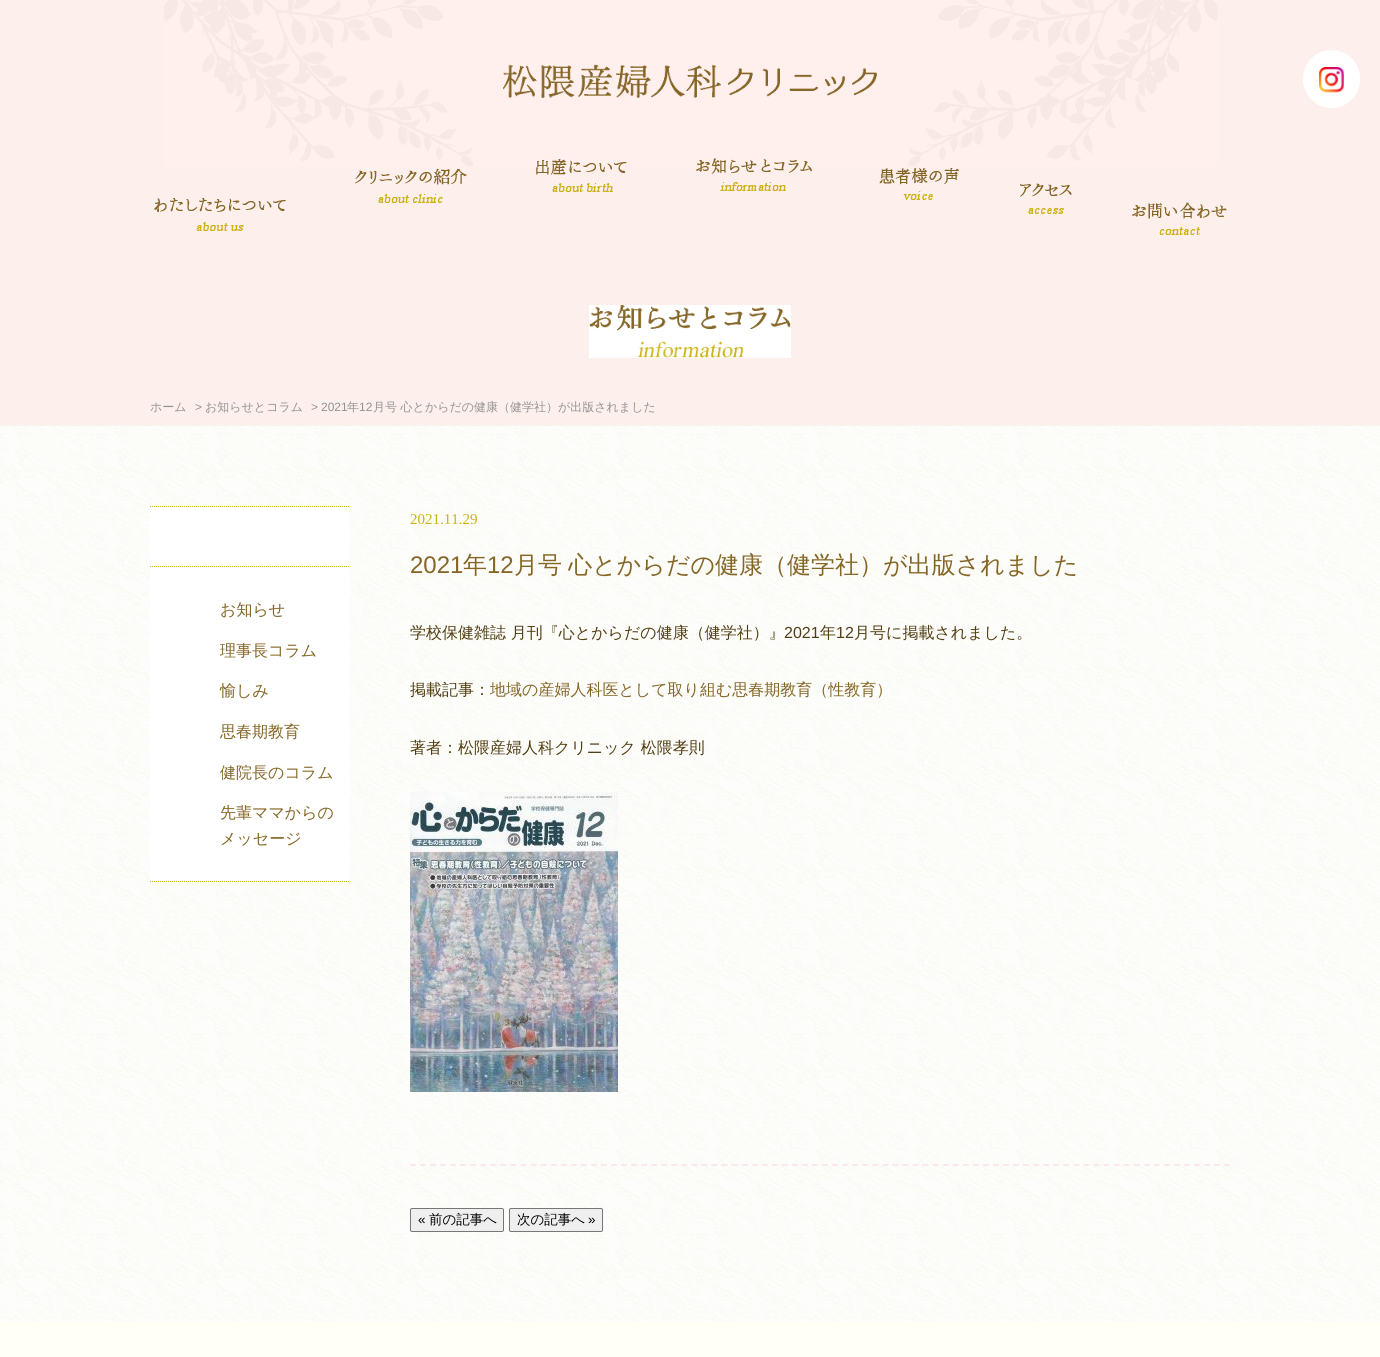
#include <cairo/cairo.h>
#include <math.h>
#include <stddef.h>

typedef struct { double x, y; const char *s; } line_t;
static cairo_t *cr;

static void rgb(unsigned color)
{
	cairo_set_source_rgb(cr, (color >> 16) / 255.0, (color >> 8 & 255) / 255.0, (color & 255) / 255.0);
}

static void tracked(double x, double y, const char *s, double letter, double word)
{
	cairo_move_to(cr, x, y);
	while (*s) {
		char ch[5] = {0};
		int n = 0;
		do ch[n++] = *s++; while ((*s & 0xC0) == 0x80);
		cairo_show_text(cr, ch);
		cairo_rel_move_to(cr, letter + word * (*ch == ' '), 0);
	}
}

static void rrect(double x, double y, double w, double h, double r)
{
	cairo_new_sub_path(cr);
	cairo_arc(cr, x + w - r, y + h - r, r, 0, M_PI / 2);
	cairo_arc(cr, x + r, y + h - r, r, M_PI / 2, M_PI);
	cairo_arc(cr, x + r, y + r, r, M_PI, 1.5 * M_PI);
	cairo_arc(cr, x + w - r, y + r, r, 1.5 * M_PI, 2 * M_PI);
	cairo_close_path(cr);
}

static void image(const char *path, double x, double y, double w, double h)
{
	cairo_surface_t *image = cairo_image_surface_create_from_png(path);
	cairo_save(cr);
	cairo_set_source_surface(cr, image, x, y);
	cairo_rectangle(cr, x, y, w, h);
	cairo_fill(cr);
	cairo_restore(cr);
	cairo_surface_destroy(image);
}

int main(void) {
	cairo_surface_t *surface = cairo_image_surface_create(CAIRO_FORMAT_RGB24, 1380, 1357);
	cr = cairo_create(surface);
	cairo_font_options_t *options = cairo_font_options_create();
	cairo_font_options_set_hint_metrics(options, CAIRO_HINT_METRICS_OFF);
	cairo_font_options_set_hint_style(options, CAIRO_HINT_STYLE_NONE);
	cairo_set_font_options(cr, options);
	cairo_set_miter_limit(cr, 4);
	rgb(0xfcefec);
	cairo_paint(cr);
	image("img/1.png", 164, 0, 1054, 166);
	image("img/2.png", 503, 64, 374, 34);
	image("img/3.png", 154, 198, 132, 33);
	image("img/4.png", 355, 168, 112, 35);
	image("img/5.png", 536, 159, 91, 33);
	image("img/6.png", 696, 158, 116, 33);
	image("img/7.png", 879, 168, 80, 32);
	image("img/8.png", 1020, 183, 52, 31);
	image("img/9.png", 1132, 202, 95, 33);
	rgb(0xffffff);
	rrect(1303, 50, 57, 58, 28.5);
	cairo_fill(cr);
	image("img/10.png", 1319, 67, 25, 26);
	image("img/11.png", 589, 305, 202, 53);
	image("img/12.png", 0, 426, 1380, 896);
	rgb(0xf6f4ef);
	cairo_rectangle(cr, 0, 425, 1380, 1);
	cairo_fill(cr);
	rgb(0xffffff);
	cairo_rectangle(cr, 150, 506, 200, 376);
	cairo_fill(cr);
	cairo_new_path(cr);
	cairo_move_to(cr, 150, 506.5);
	cairo_line_to(cr, 350, 506.5);
	rgb(0xccb213);
	cairo_set_line_width(cr, 1);
	cairo_set_dash(cr, (double[]){1, 1}, 2, 0);
	cairo_stroke(cr);
	cairo_new_path(cr);
	cairo_move_to(cr, 150, 881.5);
	cairo_line_to(cr, 350, 881.5);
	cairo_stroke(cr);
	cairo_new_path(cr);
	cairo_move_to(cr, 150, 566.5);
	cairo_line_to(cr, 350, 566.5);
	cairo_stroke(cr);
	cairo_new_path(cr);
	cairo_move_to(cr, 410, 1165);
	cairo_line_to(cr, 1230, 1165);
	rgb(0xf9e9ec);
	cairo_set_line_width(cr, 2);
	cairo_set_dash(cr, (double[]){6, 4.05}, 2, 0);
	cairo_stroke(cr);
	image("img/13.png", 410, 792, 208, 300);
	rgb(0xefefef);
	rrect(410.5, 1208.5, 93, 23, 1.5);
	cairo_fill_preserve(cr);
	rgb(0x767676);
	cairo_set_line_width(cr, 1);
	cairo_set_dash(cr, NULL, 0, 0);
	cairo_stroke(cr);
	rgb(0xefefef);
	rrect(509.5, 1208.5, 93, 23, 1.5);
	cairo_fill_preserve(cr);
	rgb(0x767676);
	cairo_stroke(cr);
	rgb(0xfffff5);
	cairo_rectangle(cr, 0, 1322, 1380, 35);
	cairo_fill(cr);
	cairo_select_font_face(cr, "WenQuanYi Zen Hei Medium", CAIRO_FONT_SLANT_NORMAL, CAIRO_FONT_WEIGHT_NORMAL);
	cairo_set_font_size(cr, 12);
	rgb(0x939393);
	cairo_move_to(cr, 150, 411);
	cairo_show_text(cr, "ホーム");
	cairo_select_font_face(cr, "Liberation Sans", CAIRO_FONT_SLANT_NORMAL, CAIRO_FONT_WEIGHT_NORMAL);
	cairo_move_to(cr, 195, 411);
	cairo_show_text(cr, ">");
	cairo_select_font_face(cr, "WenQuanYi Zen Hei Medium", CAIRO_FONT_SLANT_NORMAL, CAIRO_FONT_WEIGHT_NORMAL);
	cairo_move_to(cr, 205, 411);
	cairo_show_text(cr, "お知らせとコラム");
	cairo_select_font_face(cr, "Liberation Sans", CAIRO_FONT_SLANT_NORMAL, CAIRO_FONT_WEIGHT_NORMAL);
	cairo_move_to(cr, 311, 411);
	cairo_show_text(cr, ">");
	cairo_move_to(cr, 321, 411);
	cairo_show_text(cr, "2021");
	cairo_select_font_face(cr, "WenQuanYi Zen Hei Medium", CAIRO_FONT_SLANT_NORMAL, CAIRO_FONT_WEIGHT_NORMAL);
	cairo_move_to(cr, 347, 411);
	cairo_show_text(cr, "年");
	cairo_select_font_face(cr, "Liberation Sans", CAIRO_FONT_SLANT_NORMAL, CAIRO_FONT_WEIGHT_NORMAL);
	cairo_move_to(cr, 359, 411);
	cairo_show_text(cr, "12");
	cairo_select_font_face(cr, "WenQuanYi Zen Hei Medium", CAIRO_FONT_SLANT_NORMAL, CAIRO_FONT_WEIGHT_NORMAL);
	cairo_move_to(cr, 373, 411);
	cairo_show_text(cr, "月号 心とからだの健康（健学社）が出版されました");
	cairo_set_font_size(cr, 16);
	rgb(0x856626);
	{
		static const line_t items[] = {
			{220, 615, "お知らせ"},
			{220, 656, "理事長コラム"},
			{220, 696, "愉しみ"},
			{220, 737, "思春期教育"},
			{220, 778, "健院長のコラム"},
			{220, 818, "先輩ママからの"},
			{220, 844, "メッセージ"},
		};
		for (size_t i = 0; i < sizeof items / sizeof *items; i++) {
			cairo_move_to(cr, items[i].x, items[i].y);
			cairo_show_text(cr, items[i].s);
		}
	}
	cairo_select_font_face(cr, "Liberation Serif", CAIRO_FONT_SLANT_NORMAL, CAIRO_FONT_WEIGHT_NORMAL);
	cairo_set_font_size(cr, 15);
	rgb(0xccb213);
	cairo_move_to(cr, 410, 524);
	cairo_show_text(cr, "2021.11.29");
	cairo_select_font_face(cr, "Liberation Sans", CAIRO_FONT_SLANT_NORMAL, CAIRO_FONT_WEIGHT_NORMAL);
	cairo_set_font_size(cr, 24);
	rgb(0x856626);
	cairo_move_to(cr, 410, 573);
	cairo_show_text(cr, "2021");
	cairo_select_font_face(cr, "WenQuanYi Zen Hei Medium", CAIRO_FONT_SLANT_NORMAL, CAIRO_FONT_WEIGHT_NORMAL);
	cairo_move_to(cr, 463, 573);
	cairo_show_text(cr, "年");
	cairo_select_font_face(cr, "Liberation Sans", CAIRO_FONT_SLANT_NORMAL, CAIRO_FONT_WEIGHT_NORMAL);
	cairo_move_to(cr, 487, 573);
	cairo_show_text(cr, "12");
	cairo_select_font_face(cr, "WenQuanYi Zen Hei Medium", CAIRO_FONT_SLANT_NORMAL, CAIRO_FONT_WEIGHT_NORMAL);
	tracked(514, 573, "月号 心とからだの健康（健学社）が出版されました", 0, -1);
	cairo_set_font_size(cr, 16);
	rgb(0x523e13);
	cairo_move_to(cr, 410, 638);
	cairo_show_text(cr, "学校保健雑誌 月刊『心とからだの健康（健学社）』");
	cairo_select_font_face(cr, "Liberation Sans", CAIRO_FONT_SLANT_NORMAL, CAIRO_FONT_WEIGHT_NORMAL);
	cairo_move_to(cr, 784, 638);
	cairo_show_text(cr, "2021");
	cairo_select_font_face(cr, "WenQuanYi Zen Hei Medium", CAIRO_FONT_SLANT_NORMAL, CAIRO_FONT_WEIGHT_NORMAL);
	cairo_move_to(cr, 820, 638);
	cairo_show_text(cr, "年");
	cairo_select_font_face(cr, "Liberation Sans", CAIRO_FONT_SLANT_NORMAL, CAIRO_FONT_WEIGHT_NORMAL);
	cairo_move_to(cr, 836, 638);
	cairo_show_text(cr, "12");
	cairo_select_font_face(cr, "WenQuanYi Zen Hei Medium", CAIRO_FONT_SLANT_NORMAL, CAIRO_FONT_WEIGHT_NORMAL);
	cairo_move_to(cr, 854, 638);
	cairo_show_text(cr, "月号に掲載されました。");
	cairo_move_to(cr, 410, 695);
	cairo_show_text(cr, "掲載記事：");
	rgb(0x856626);
	cairo_move_to(cr, 490, 695);
	cairo_show_text(cr, "地域の産婦人科医として取り組む思春期教育（性教育）");
	rgb(0x523e13);
	cairo_move_to(cr, 410, 753);
	cairo_show_text(cr, "著者：松隈産婦人科クリニック 松隈孝則");
	cairo_select_font_face(cr, "Liberation Sans", CAIRO_FONT_SLANT_NORMAL, CAIRO_FONT_WEIGHT_NORMAL);
	cairo_set_font_size(cr, 13.5);
	rgb(0x000000);
	cairo_move_to(cr, 418, 1224);
	cairo_show_text(cr, "«");
	cairo_select_font_face(cr, "WenQuanYi Zen Hei Medium", CAIRO_FONT_SLANT_NORMAL, CAIRO_FONT_WEIGHT_NORMAL);
	cairo_move_to(cr, 429, 1224);
	cairo_show_text(cr, "前の記事へ");
	cairo_move_to(cr, 517, 1224);
	cairo_show_text(cr, "次の記事へ");
	cairo_select_font_face(cr, "Liberation Sans", CAIRO_FONT_SLANT_NORMAL, CAIRO_FONT_WEIGHT_NORMAL);
	cairo_move_to(cr, 588, 1224);
	cairo_show_text(cr, "»");
	cairo_surface_write_to_png(surface, "page.png");
	cairo_font_options_destroy(options);
	cairo_destroy(cr);
	cairo_surface_destroy(surface);
	return 0;
}
